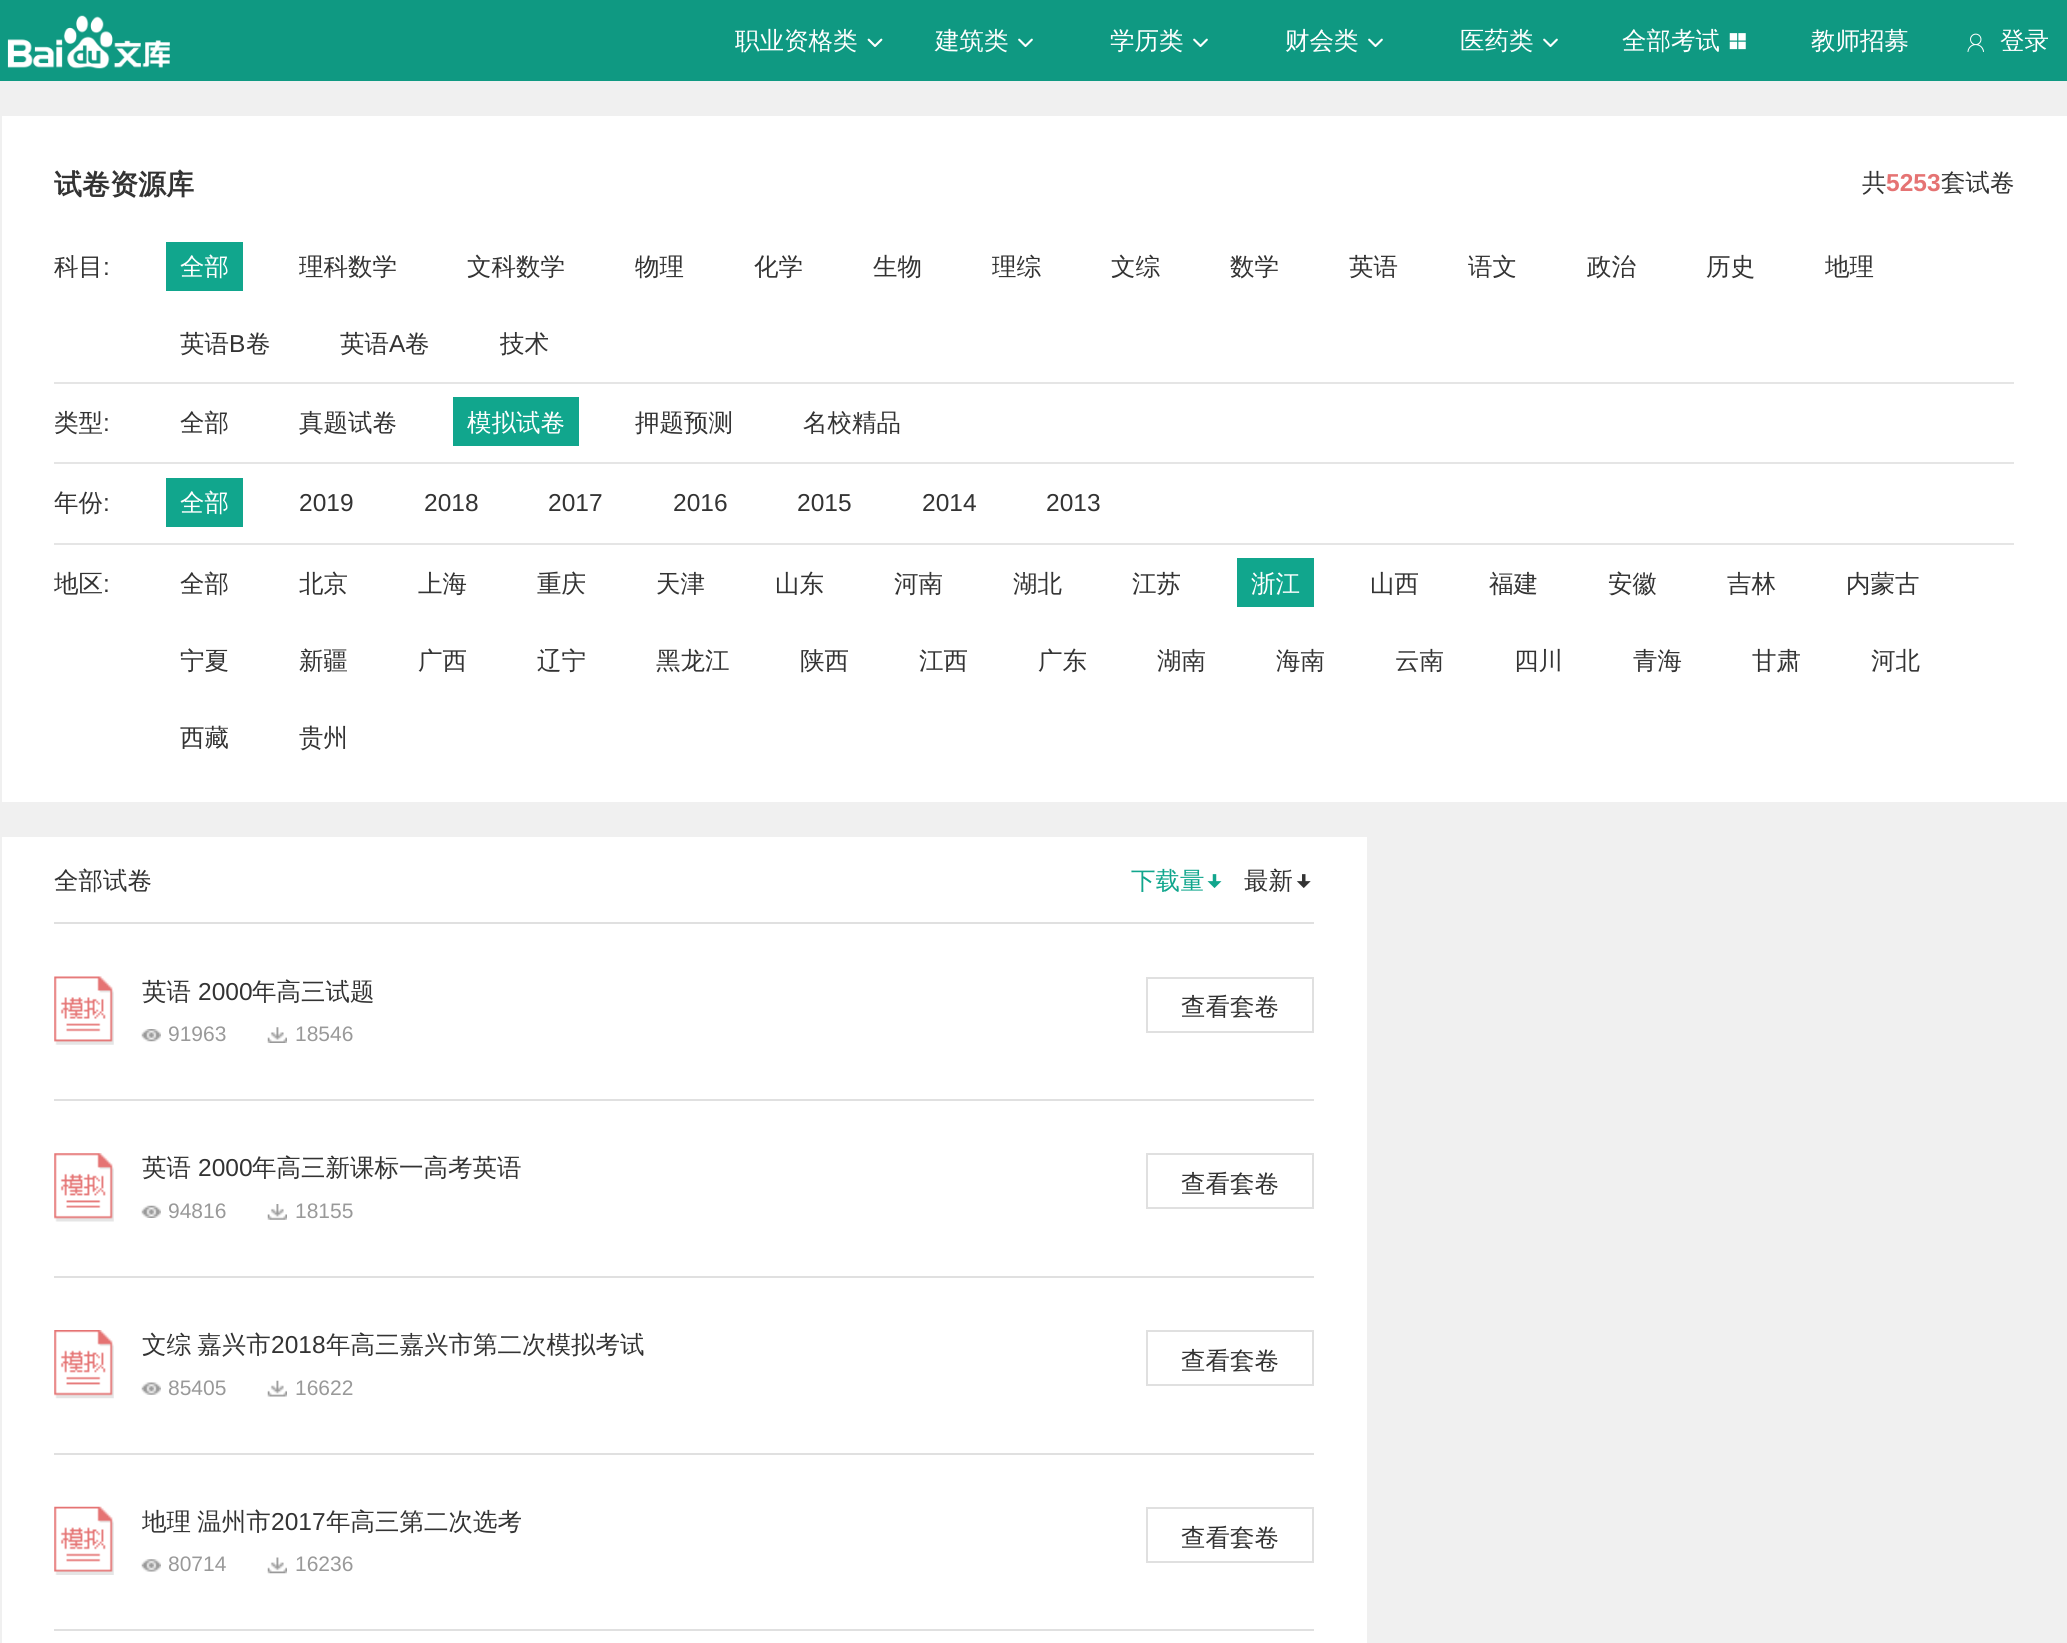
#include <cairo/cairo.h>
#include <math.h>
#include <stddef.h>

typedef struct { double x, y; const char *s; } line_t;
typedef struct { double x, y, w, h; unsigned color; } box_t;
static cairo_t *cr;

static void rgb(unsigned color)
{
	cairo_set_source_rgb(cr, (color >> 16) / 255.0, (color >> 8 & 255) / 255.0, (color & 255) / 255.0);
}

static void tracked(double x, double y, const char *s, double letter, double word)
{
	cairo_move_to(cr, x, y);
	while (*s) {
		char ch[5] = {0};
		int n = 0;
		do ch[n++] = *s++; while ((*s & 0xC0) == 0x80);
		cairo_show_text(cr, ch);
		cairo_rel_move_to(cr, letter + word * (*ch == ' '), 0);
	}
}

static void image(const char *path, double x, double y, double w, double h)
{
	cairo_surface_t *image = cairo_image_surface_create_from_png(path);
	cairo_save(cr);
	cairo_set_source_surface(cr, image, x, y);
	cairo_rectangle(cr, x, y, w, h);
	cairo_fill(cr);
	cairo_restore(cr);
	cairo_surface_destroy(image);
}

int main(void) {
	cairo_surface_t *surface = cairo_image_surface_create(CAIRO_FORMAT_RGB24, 2067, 1643);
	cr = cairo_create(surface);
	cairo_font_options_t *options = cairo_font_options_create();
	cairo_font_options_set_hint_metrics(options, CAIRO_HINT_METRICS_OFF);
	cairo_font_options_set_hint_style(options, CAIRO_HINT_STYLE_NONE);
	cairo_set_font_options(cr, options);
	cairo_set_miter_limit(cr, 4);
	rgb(0xf0f0f0);
	cairo_paint(cr);
	rgb(0x0f9982);
	cairo_rectangle(cr, 0, 0, 2067, 81);
	cairo_fill(cr);
	image("img/1.png", 7, 15, 163, 54);
	image("img/2.png", 867, 38, 16, 9);
	image("img/3.png", 1018, 38, 15, 9);
	image("img/3.png", 1193, 38, 15, 9);
	image("img/3.png", 1368, 38, 15, 9);
	image("img/3.png", 1543, 38, 15, 9);
	image("img/4.png", 1729, 33, 17, 17);
	image("img/5.png", 1967, 33, 17, 19);
	{
		static const box_t items[] = {
			{2, 116, 2065, 686, 0xffffff},
			{54, 382, 1960, 2, 0xe5e5e5},
			{166, 242, 77, 49, 0x11a68d},
			{54, 462, 1960, 2, 0xe5e5e5},
			{453, 397, 126, 49, 0x11a68d},
			{54, 543, 1960, 2, 0xe5e5e5},
			{166, 478, 77, 49, 0x11a68d},
			{1237, 558, 77, 49, 0x11a68d},
			{2, 837, 1365, 806, 0xffffff},
			{54, 922, 1260, 2, 0xe0e0e0},
		};
		for (size_t i = 0; i < sizeof items / sizeof *items; i++) {
			rgb(items[i].color);
			cairo_rectangle(cr, items[i].x, items[i].y, items[i].w, items[i].h);
			cairo_fill(cr);
		}
	}
	image("img/6.png", 1207, 874, 15, 14);
	image("img/7.png", 1296, 874, 15, 14);
	image("img/8.png", 54, 976, 60, 69);
	image("img/9.png", 141, 1029, 20, 13);
	image("img/10.png", 267, 1027, 20, 16);
	cairo_rectangle(cr, 1147, 978, 166, 54);
	cairo_stroke(cr);
	cairo_rectangle(cr, 54, 1099, 1260, 2);
	cairo_fill(cr);
	image("img/11.png", 54, 1153, 60, 69);
	image("img/12.png", 141, 1205, 20, 13);
	image("img/13.png", 267, 1204, 20, 16);
	cairo_rectangle(cr, 1147, 1154, 166, 54);
	cairo_stroke(cr);
	cairo_rectangle(cr, 54, 1276, 1260, 2);
	cairo_fill(cr);
	image("img/14.png", 54, 1330, 60, 69);
	image("img/15.png", 141, 1382, 20, 13);
	image("img/16.png", 267, 1380, 20, 17);
	cairo_rectangle(cr, 1147, 1331, 166, 54);
	cairo_stroke(cr);
	cairo_rectangle(cr, 54, 1453, 1260, 2);
	cairo_fill(cr);
	image("img/17.png", 54, 1506, 60, 69);
	image("img/18.png", 141, 1559, 20, 13);
	image("img/19.png", 267, 1557, 20, 17);
	cairo_rectangle(cr, 1147, 1508, 166, 54);
	cairo_stroke(cr);
	cairo_rectangle(cr, 54, 1629, 1260, 2);
	cairo_fill(cr);
	cairo_select_font_face(cr, "WenQuanYi Zen Hei Medium", CAIRO_FONT_SLANT_NORMAL, CAIRO_FONT_WEIGHT_NORMAL);
	cairo_set_font_size(cr, 24.5);
	rgb(0xffffff);
	{
		static const line_t items[] = {
			{735, 49, "职业资格类"},
			{935, 49, "建筑类"},
			{1110, 49, "学历类"},
			{1285, 49, "财会类"},
			{1460, 49, "医药类"},
			{1622, 49, "全部考试"},
			{1811, 49, "教师招募"},
			{2000, 49, "登录"},
		};
		for (size_t i = 0; i < sizeof items / sizeof *items; i++) {
			cairo_move_to(cr, items[i].x, items[i].y);
			cairo_show_text(cr, items[i].s);
		}
	}
	cairo_select_font_face(cr, "WenQuanYi Zen Hei", CAIRO_FONT_SLANT_NORMAL, CAIRO_FONT_WEIGHT_BOLD);
	cairo_set_font_size(cr, 28);
	rgb(0x333333);
	cairo_move_to(cr, 54, 194);
	cairo_show_text(cr, "试卷资源库");
	cairo_select_font_face(cr, "WenQuanYi Zen Hei Medium", CAIRO_FONT_SLANT_NORMAL, CAIRO_FONT_WEIGHT_NORMAL);
	cairo_set_font_size(cr, 24.5);
	cairo_move_to(cr, 1862, 191);
	cairo_show_text(cr, "共");
	cairo_select_font_face(cr, "Liberation Sans", CAIRO_FONT_SLANT_NORMAL, CAIRO_FONT_WEIGHT_BOLD);
	rgb(0xe57373);
	cairo_move_to(cr, 1886, 191);
	cairo_show_text(cr, "5253");
	cairo_select_font_face(cr, "WenQuanYi Zen Hei Medium", CAIRO_FONT_SLANT_NORMAL, CAIRO_FONT_WEIGHT_NORMAL);
	rgb(0x333333);
	cairo_move_to(cr, 1941, 191);
	cairo_show_text(cr, "套试卷");
	cairo_move_to(cr, 54, 275);
	cairo_show_text(cr, "科目");
	cairo_select_font_face(cr, "Liberation Sans", CAIRO_FONT_SLANT_NORMAL, CAIRO_FONT_WEIGHT_NORMAL);
	cairo_move_to(cr, 103, 275);
	cairo_show_text(cr, ":");
	cairo_select_font_face(cr, "WenQuanYi Zen Hei Medium", CAIRO_FONT_SLANT_NORMAL, CAIRO_FONT_WEIGHT_NORMAL);
	rgb(0xffffff);
	cairo_move_to(cr, 180, 275);
	cairo_show_text(cr, "全部");
	rgb(0x333333);
	{
		static const line_t items[] = {
			{299, 275, "理科数学"},
			{467, 275, "文科数学"},
			{635, 275, "物理"},
			{754, 275, "化学"},
			{873, 275, "生物"},
			{992, 275, "理综"},
			{1111, 275, "文综"},
			{1230, 275, "数学"},
			{1349, 275, "英语"},
			{1468, 275, "语文"},
			{1587, 275, "政治"},
			{1706, 275, "历史"},
			{1825, 275, "地理"},
			{180, 352, "英语"},
		};
		for (size_t i = 0; i < sizeof items / sizeof *items; i++) {
			cairo_move_to(cr, items[i].x, items[i].y);
			cairo_show_text(cr, items[i].s);
		}
	}
	cairo_select_font_face(cr, "Liberation Sans", CAIRO_FONT_SLANT_NORMAL, CAIRO_FONT_WEIGHT_NORMAL);
	cairo_move_to(cr, 229, 352);
	cairo_show_text(cr, "B");
	cairo_select_font_face(cr, "WenQuanYi Zen Hei Medium", CAIRO_FONT_SLANT_NORMAL, CAIRO_FONT_WEIGHT_NORMAL);
	cairo_move_to(cr, 246, 352);
	cairo_show_text(cr, "卷");
	cairo_move_to(cr, 340, 352);
	cairo_show_text(cr, "英语");
	cairo_select_font_face(cr, "Liberation Sans", CAIRO_FONT_SLANT_NORMAL, CAIRO_FONT_WEIGHT_NORMAL);
	cairo_move_to(cr, 389, 352);
	cairo_show_text(cr, "A");
	cairo_select_font_face(cr, "WenQuanYi Zen Hei Medium", CAIRO_FONT_SLANT_NORMAL, CAIRO_FONT_WEIGHT_NORMAL);
	{
		static const line_t items[] = {
			{405, 352, "卷"},
			{500, 352, "技术"},
			{54, 431, "类型"},
		};
		for (size_t i = 0; i < sizeof items / sizeof *items; i++) {
			cairo_move_to(cr, items[i].x, items[i].y);
			cairo_show_text(cr, items[i].s);
		}
	}
	cairo_select_font_face(cr, "Liberation Sans", CAIRO_FONT_SLANT_NORMAL, CAIRO_FONT_WEIGHT_NORMAL);
	cairo_move_to(cr, 103, 431);
	cairo_show_text(cr, ":");
	cairo_select_font_face(cr, "WenQuanYi Zen Hei Medium", CAIRO_FONT_SLANT_NORMAL, CAIRO_FONT_WEIGHT_NORMAL);
	cairo_move_to(cr, 180, 431);
	cairo_show_text(cr, "全部");
	cairo_move_to(cr, 299, 431);
	cairo_show_text(cr, "真题试卷");
	rgb(0xffffff);
	cairo_move_to(cr, 467, 431);
	cairo_show_text(cr, "模拟试卷");
	rgb(0x333333);
	{
		static const line_t items[] = {
			{635, 431, "押题预测"},
			{803, 431, "名校精品"},
			{54, 511, "年份"},
		};
		for (size_t i = 0; i < sizeof items / sizeof *items; i++) {
			cairo_move_to(cr, items[i].x, items[i].y);
			cairo_show_text(cr, items[i].s);
		}
	}
	cairo_select_font_face(cr, "Liberation Sans", CAIRO_FONT_SLANT_NORMAL, CAIRO_FONT_WEIGHT_NORMAL);
	cairo_move_to(cr, 103, 511);
	cairo_show_text(cr, ":");
	cairo_select_font_face(cr, "WenQuanYi Zen Hei Medium", CAIRO_FONT_SLANT_NORMAL, CAIRO_FONT_WEIGHT_NORMAL);
	rgb(0xffffff);
	cairo_move_to(cr, 180, 511);
	cairo_show_text(cr, "全部");
	cairo_select_font_face(cr, "Liberation Sans", CAIRO_FONT_SLANT_NORMAL, CAIRO_FONT_WEIGHT_NORMAL);
	rgb(0x333333);
	{
		static const line_t items[] = {
			{299, 511, "2019"},
			{424, 511, "2018"},
			{548, 511, "2017"},
			{673, 511, "2016"},
			{797, 511, "2015"},
			{922, 511, "2014"},
			{1046, 511, "2013"},
		};
		for (size_t i = 0; i < sizeof items / sizeof *items; i++) {
			cairo_move_to(cr, items[i].x, items[i].y);
			cairo_show_text(cr, items[i].s);
		}
	}
	cairo_select_font_face(cr, "WenQuanYi Zen Hei Medium", CAIRO_FONT_SLANT_NORMAL, CAIRO_FONT_WEIGHT_NORMAL);
	cairo_move_to(cr, 54, 592);
	cairo_show_text(cr, "地区");
	cairo_select_font_face(cr, "Liberation Sans", CAIRO_FONT_SLANT_NORMAL, CAIRO_FONT_WEIGHT_NORMAL);
	cairo_move_to(cr, 103, 592);
	cairo_show_text(cr, ":");
	cairo_select_font_face(cr, "WenQuanYi Zen Hei Medium", CAIRO_FONT_SLANT_NORMAL, CAIRO_FONT_WEIGHT_NORMAL);
	{
		static const line_t items[] = {
			{180, 592, "全部"},
			{299, 592, "北京"},
			{418, 592, "上海"},
			{537, 592, "重庆"},
			{656, 592, "天津"},
			{775, 592, "山东"},
			{894, 592, "河南"},
			{1013, 592, "湖北"},
			{1132, 592, "江苏"},
		};
		for (size_t i = 0; i < sizeof items / sizeof *items; i++) {
			cairo_move_to(cr, items[i].x, items[i].y);
			cairo_show_text(cr, items[i].s);
		}
	}
	rgb(0xffffff);
	cairo_move_to(cr, 1251, 592);
	cairo_show_text(cr, "浙江");
	rgb(0x333333);
	{
		static const line_t items[] = {
			{1370, 592, "山西"},
			{1489, 592, "福建"},
			{1608, 592, "安徽"},
			{1727, 592, "吉林"},
			{1846, 592, "内蒙古"},
			{180, 669, "宁夏"},
			{299, 669, "新疆"},
			{418, 669, "广西"},
			{537, 669, "辽宁"},
			{656, 669, "黑龙江"},
			{800, 669, "陕西"},
			{919, 669, "江西"},
			{1038, 669, "广东"},
			{1157, 669, "湖南"},
			{1276, 669, "海南"},
			{1395, 669, "云南"},
			{1514, 669, "四川"},
			{1633, 669, "青海"},
			{1752, 669, "甘肃"},
			{1871, 669, "河北"},
			{180, 746, "西藏"},
			{299, 746, "贵州"},
			{54, 889, "全部试卷"},
		};
		for (size_t i = 0; i < sizeof items / sizeof *items; i++) {
			cairo_move_to(cr, items[i].x, items[i].y);
			cairo_show_text(cr, items[i].s);
		}
	}
	rgb(0x11a68d);
	cairo_move_to(cr, 1131, 889);
	cairo_show_text(cr, "下载量");
	rgb(0x333333);
	cairo_move_to(cr, 1244, 889);
	cairo_show_text(cr, "最新");
	cairo_move_to(cr, 142, 1000);
	cairo_show_text(cr, "英语");
	cairo_select_font_face(cr, "Liberation Sans", CAIRO_FONT_SLANT_NORMAL, CAIRO_FONT_WEIGHT_NORMAL);
	cairo_move_to(cr, 198, 1000);
	cairo_show_text(cr, "2000");
	cairo_select_font_face(cr, "WenQuanYi Zen Hei Medium", CAIRO_FONT_SLANT_NORMAL, CAIRO_FONT_WEIGHT_NORMAL);
	cairo_move_to(cr, 252, 1000);
	cairo_show_text(cr, "年高三试题");
	cairo_select_font_face(cr, "Liberation Sans", CAIRO_FONT_SLANT_NORMAL, CAIRO_FONT_WEIGHT_NORMAL);
	cairo_set_font_size(cr, 21);
	rgb(0x999999);
	cairo_move_to(cr, 168, 1041);
	cairo_show_text(cr, "91963");
	cairo_move_to(cr, 295, 1041);
	cairo_show_text(cr, "18546");
	cairo_select_font_face(cr, "WenQuanYi Zen Hei Medium", CAIRO_FONT_SLANT_NORMAL, CAIRO_FONT_WEIGHT_NORMAL);
	cairo_set_font_size(cr, 24.5);
	rgb(0x333333);
	cairo_move_to(cr, 1181, 1015);
	cairo_show_text(cr, "查看套卷");
	cairo_move_to(cr, 142, 1176);
	cairo_show_text(cr, "英语");
	cairo_select_font_face(cr, "Liberation Sans", CAIRO_FONT_SLANT_NORMAL, CAIRO_FONT_WEIGHT_NORMAL);
	cairo_move_to(cr, 198, 1176);
	cairo_show_text(cr, "2000");
	cairo_select_font_face(cr, "WenQuanYi Zen Hei Medium", CAIRO_FONT_SLANT_NORMAL, CAIRO_FONT_WEIGHT_NORMAL);
	cairo_move_to(cr, 252, 1176);
	cairo_show_text(cr, "年高三新课标一高考英语");
	cairo_select_font_face(cr, "Liberation Sans", CAIRO_FONT_SLANT_NORMAL, CAIRO_FONT_WEIGHT_NORMAL);
	cairo_set_font_size(cr, 21);
	rgb(0x999999);
	cairo_move_to(cr, 168, 1218);
	cairo_show_text(cr, "94816");
	cairo_move_to(cr, 295, 1218);
	cairo_show_text(cr, "18155");
	cairo_select_font_face(cr, "WenQuanYi Zen Hei Medium", CAIRO_FONT_SLANT_NORMAL, CAIRO_FONT_WEIGHT_NORMAL);
	cairo_set_font_size(cr, 24.5);
	rgb(0x333333);
	cairo_move_to(cr, 1181, 1192);
	cairo_show_text(cr, "查看套卷");
	tracked(142, 1353, "文综 嘉兴市", 0, -1);
	cairo_select_font_face(cr, "Liberation Sans", CAIRO_FONT_SLANT_NORMAL, CAIRO_FONT_WEIGHT_NORMAL);
	cairo_move_to(cr, 271, 1353);
	cairo_show_text(cr, "2018");
	cairo_select_font_face(cr, "WenQuanYi Zen Hei Medium", CAIRO_FONT_SLANT_NORMAL, CAIRO_FONT_WEIGHT_NORMAL);
	cairo_move_to(cr, 326, 1353);
	cairo_show_text(cr, "年高三嘉兴市第二次模拟考试");
	cairo_select_font_face(cr, "Liberation Sans", CAIRO_FONT_SLANT_NORMAL, CAIRO_FONT_WEIGHT_NORMAL);
	cairo_set_font_size(cr, 21);
	rgb(0x999999);
	cairo_move_to(cr, 168, 1395);
	cairo_show_text(cr, "85405");
	cairo_move_to(cr, 295, 1395);
	cairo_show_text(cr, "16622");
	cairo_select_font_face(cr, "WenQuanYi Zen Hei Medium", CAIRO_FONT_SLANT_NORMAL, CAIRO_FONT_WEIGHT_NORMAL);
	cairo_set_font_size(cr, 24.5);
	rgb(0x333333);
	cairo_move_to(cr, 1181, 1369);
	cairo_show_text(cr, "查看套卷");
	tracked(142, 1530, "地理 温州市", 0, -1);
	cairo_select_font_face(cr, "Liberation Sans", CAIRO_FONT_SLANT_NORMAL, CAIRO_FONT_WEIGHT_NORMAL);
	cairo_move_to(cr, 271, 1530);
	cairo_show_text(cr, "2017");
	cairo_select_font_face(cr, "WenQuanYi Zen Hei Medium", CAIRO_FONT_SLANT_NORMAL, CAIRO_FONT_WEIGHT_NORMAL);
	cairo_move_to(cr, 326, 1530);
	cairo_show_text(cr, "年高三第二次选考");
	cairo_select_font_face(cr, "Liberation Sans", CAIRO_FONT_SLANT_NORMAL, CAIRO_FONT_WEIGHT_NORMAL);
	cairo_set_font_size(cr, 21);
	rgb(0x999999);
	cairo_move_to(cr, 168, 1571);
	cairo_show_text(cr, "80714");
	cairo_move_to(cr, 295, 1571);
	cairo_show_text(cr, "16236");
	cairo_select_font_face(cr, "WenQuanYi Zen Hei Medium", CAIRO_FONT_SLANT_NORMAL, CAIRO_FONT_WEIGHT_NORMAL);
	cairo_set_font_size(cr, 24.5);
	rgb(0x333333);
	cairo_move_to(cr, 1181, 1546);
	cairo_show_text(cr, "查看套卷");
	cairo_surface_write_to_png(surface, "page.png");
	cairo_font_options_destroy(options);
	cairo_destroy(cr);
	cairo_surface_destroy(surface);
	return 0;
}
